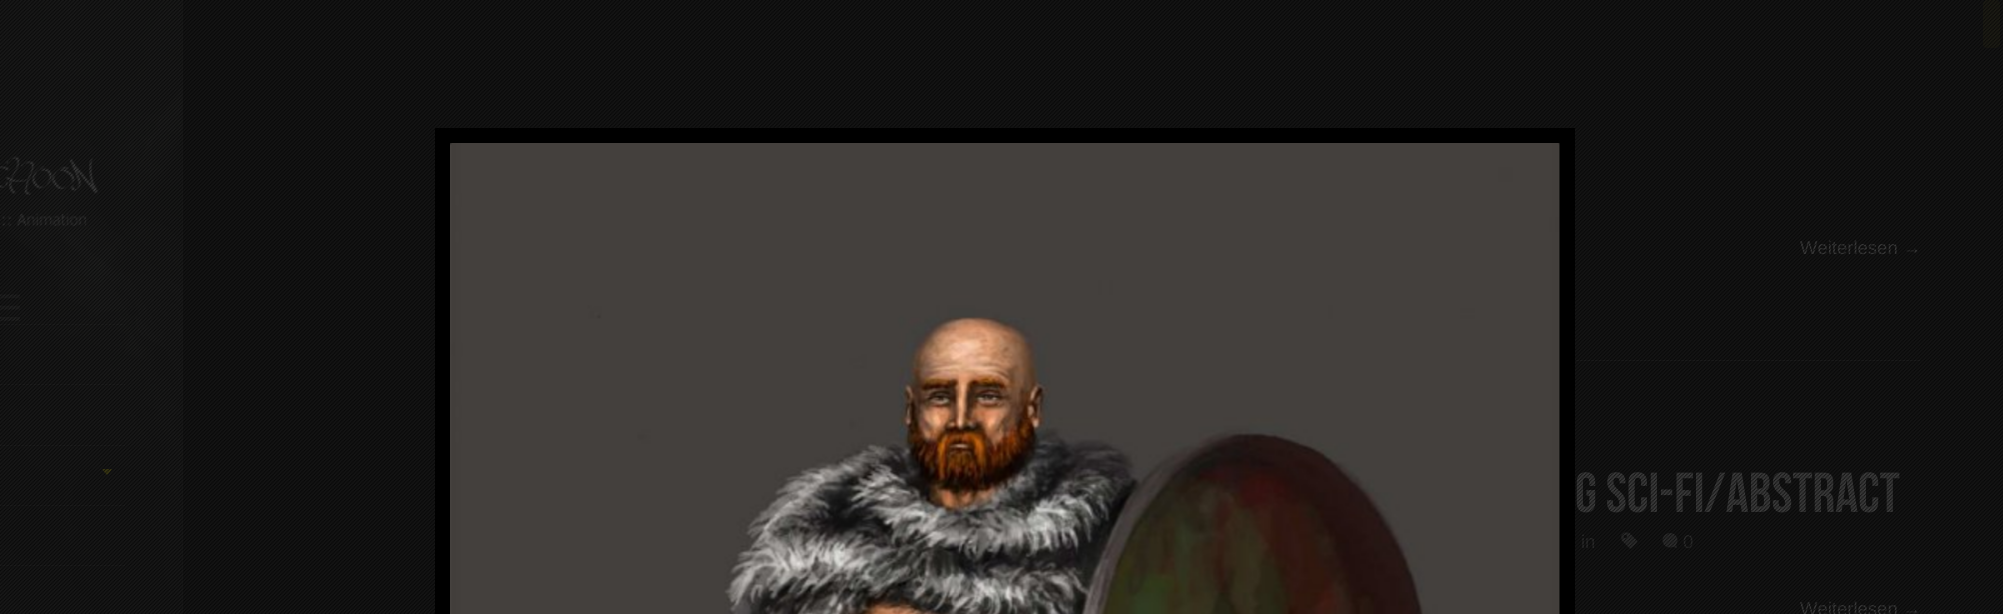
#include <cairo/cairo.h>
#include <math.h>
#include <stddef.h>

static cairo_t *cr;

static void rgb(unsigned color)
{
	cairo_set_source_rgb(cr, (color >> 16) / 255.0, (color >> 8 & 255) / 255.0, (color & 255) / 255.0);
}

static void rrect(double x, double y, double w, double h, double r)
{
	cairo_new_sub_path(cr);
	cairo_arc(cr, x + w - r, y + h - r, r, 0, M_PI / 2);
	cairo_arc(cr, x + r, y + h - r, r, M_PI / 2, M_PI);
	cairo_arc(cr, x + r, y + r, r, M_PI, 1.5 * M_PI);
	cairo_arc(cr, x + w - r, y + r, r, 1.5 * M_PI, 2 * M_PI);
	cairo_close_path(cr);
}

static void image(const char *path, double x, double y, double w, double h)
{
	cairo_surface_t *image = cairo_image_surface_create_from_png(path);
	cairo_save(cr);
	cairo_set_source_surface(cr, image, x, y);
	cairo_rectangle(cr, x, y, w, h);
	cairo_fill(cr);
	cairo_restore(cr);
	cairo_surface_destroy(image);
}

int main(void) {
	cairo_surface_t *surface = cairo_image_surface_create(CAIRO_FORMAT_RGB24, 2003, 614);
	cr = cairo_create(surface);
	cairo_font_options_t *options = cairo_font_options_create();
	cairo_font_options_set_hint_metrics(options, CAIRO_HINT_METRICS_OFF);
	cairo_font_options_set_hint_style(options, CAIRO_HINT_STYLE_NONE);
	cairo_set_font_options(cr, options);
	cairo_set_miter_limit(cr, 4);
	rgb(0x1b1b1b);
	cairo_paint(cr);
	rgb(0x242424);
	cairo_rectangle(cr, 182, 0, 1, 614);
	cairo_fill(cr);
	image("img/3.png", 0, 0, 183, 614);
	image("img/4.png", 0, 156, 99, 71);
	cairo_set_source_rgba(cr, 0.227, 0.227, 0.227, 0.25);
	cairo_rectangle(cr, 0, 324, 125, 1);
	cairo_fill(cr);
	cairo_rectangle(cr, 0, 384, 125, 1);
	cairo_fill(cr);
	cairo_rectangle(cr, 0, 445, 125, 1);
	cairo_fill(cr);
	cairo_rectangle(cr, 0, 505, 125, 1);
	cairo_fill(cr);
	image("img/5.png", 102, 469, 10, 6);
	cairo_rectangle(cr, 0, 565, 125, 1);
	cairo_fill(cr);
	image("img/6.png", 0, 294, 20, 27);
	rgb(0x25241b);
	rrect(1983, 0, 17, 48, 4);
	cairo_fill(cr);
	rgb(0x252525);
	cairo_rectangle(cr, 1575, 360, 346, 1);
	cairo_fill(cr);
	image("img/7.png", 1621, 532, 17, 17);
	image("img/8.png", 1662, 533, 16, 15);
	cairo_select_font_face(cr, "Liberation Sans", CAIRO_FONT_SLANT_NORMAL, CAIRO_FONT_WEIGHT_NORMAL);
	cairo_set_font_size(cr, 18.5);
	rgb(0x4e4e4e);
	cairo_move_to(cr, 1800, 254);
	cairo_show_text(cr, "Weiterlesen →");
	cairo_select_font_face(cr, "Bebas Neue", CAIRO_FONT_SLANT_NORMAL, CAIRO_FONT_WEIGHT_NORMAL);
	cairo_set_font_size(cr, 56.25);
	cairo_move_to(cr, 1575, 512);
	cairo_show_text(cr, "g Sci-Fi/Abstract");
	cairo_select_font_face(cr, "Liberation Sans", CAIRO_FONT_SLANT_NORMAL, CAIRO_FONT_WEIGHT_NORMAL);
	cairo_set_font_size(cr, 18.5);
	rgb(0x3a3a3a);
	cairo_move_to(cr, 1581, 548);
	cairo_show_text(cr, "in");
	cairo_move_to(cr, 1683, 548);
	cairo_show_text(cr, "0");
	rgb(0x4e4e4e);
	cairo_move_to(cr, 1800, 615);
	cairo_show_text(cr, "Weiterlesen →");
	image("img/1.png", 0, 0, 2003, 614);
	rgb(0x000000);
	cairo_rectangle(cr, 435, 128, 1140, 486);
	cairo_fill(cr);
	image("img/2.png", 450, 143, 1110, 471);
	cairo_surface_write_to_png(surface, "page.png");
	cairo_font_options_destroy(options);
	cairo_destroy(cr);
	cairo_surface_destroy(surface);
	return 0;
}
